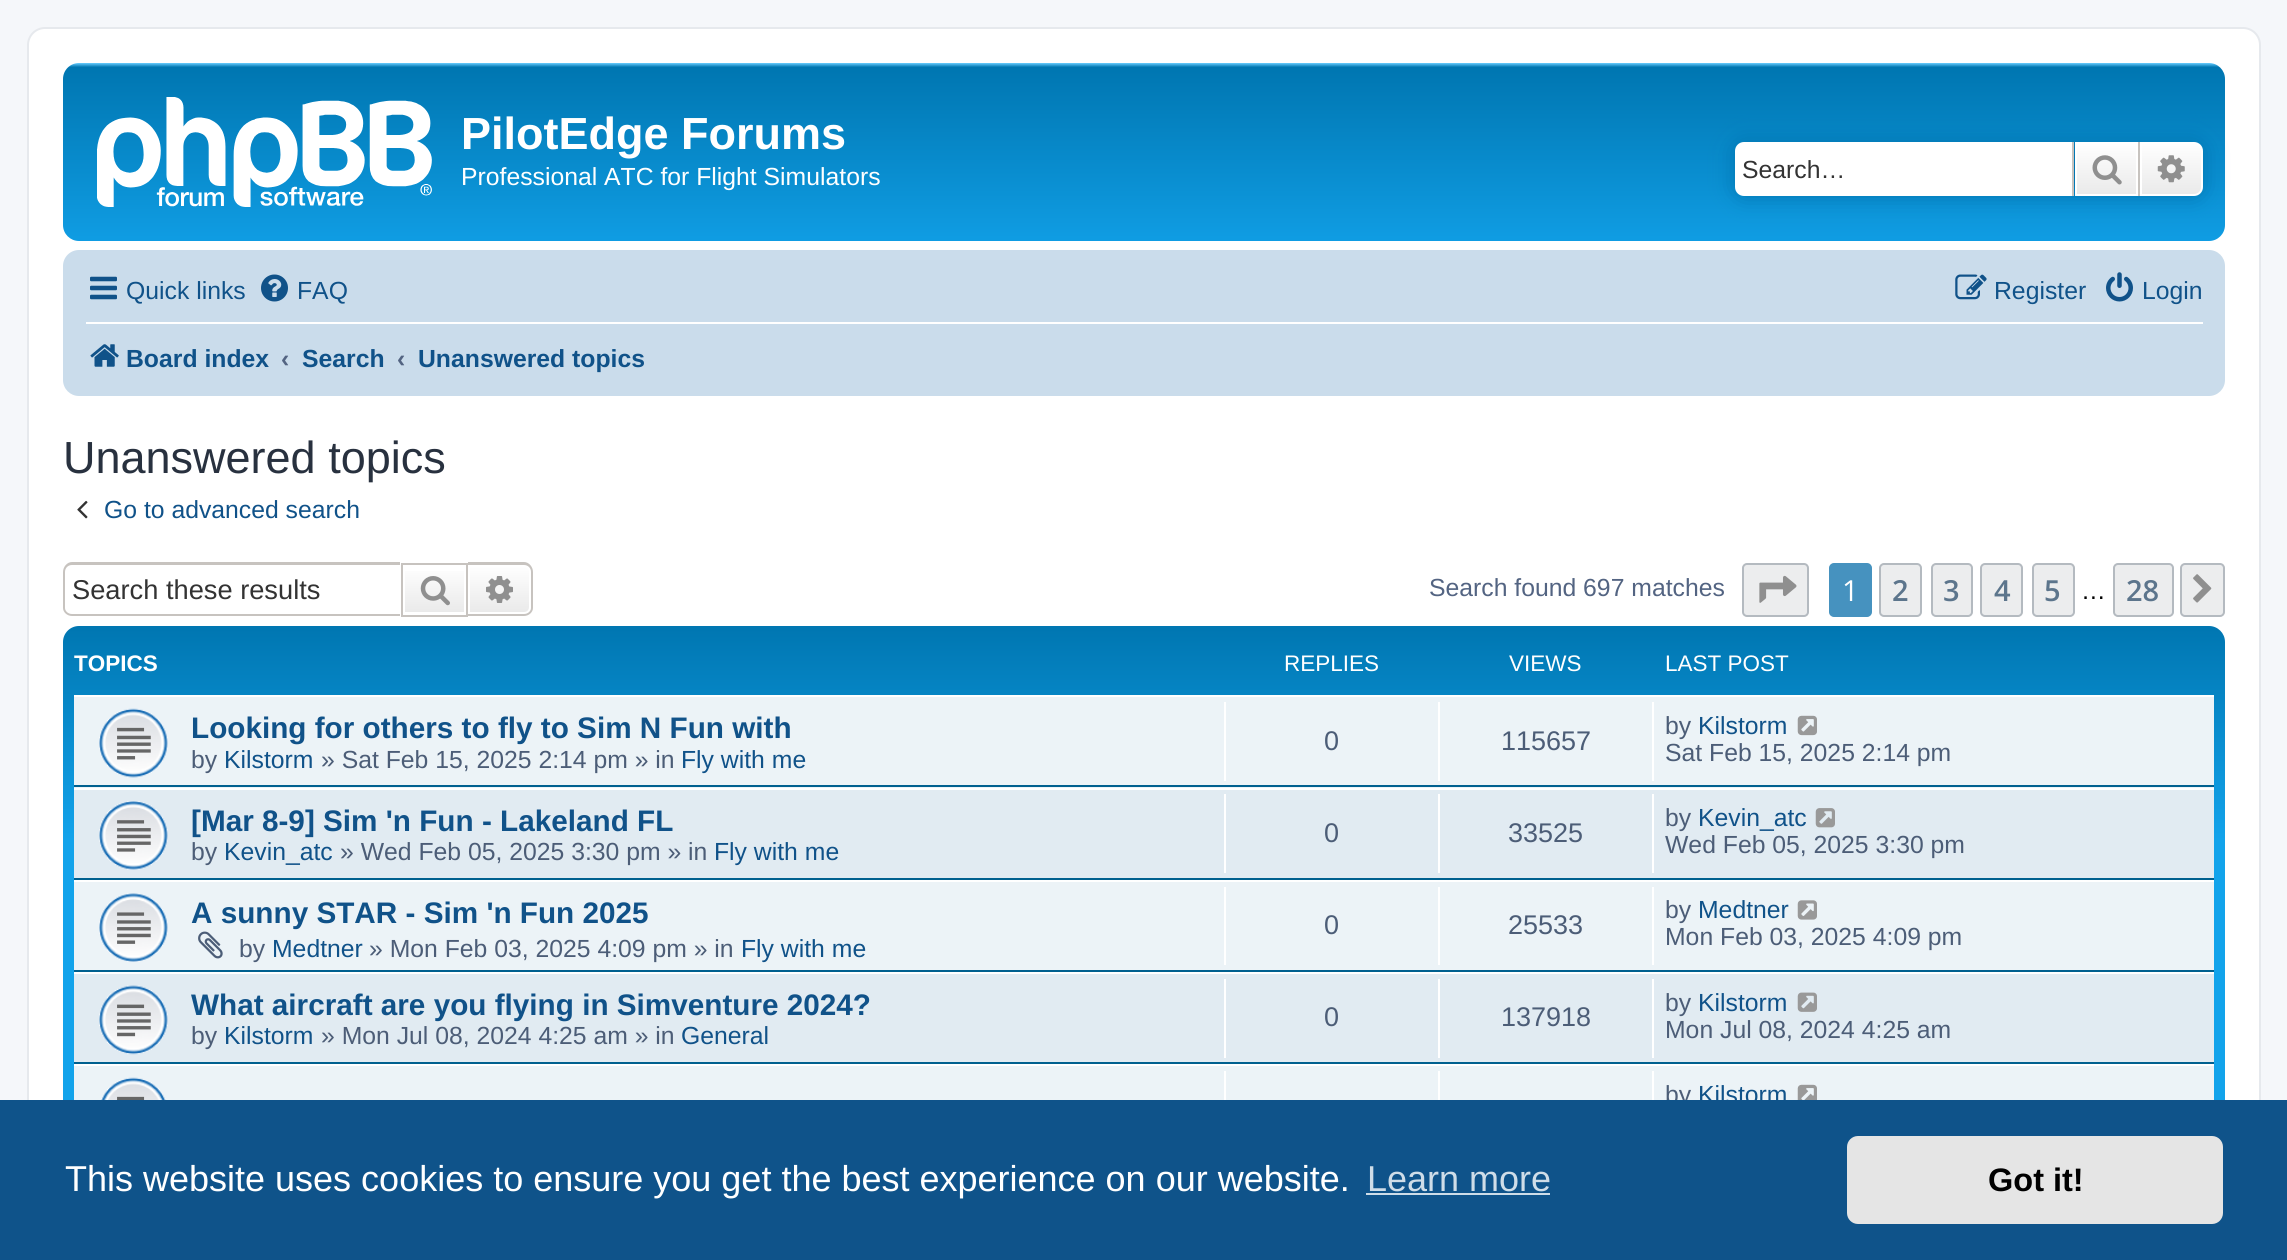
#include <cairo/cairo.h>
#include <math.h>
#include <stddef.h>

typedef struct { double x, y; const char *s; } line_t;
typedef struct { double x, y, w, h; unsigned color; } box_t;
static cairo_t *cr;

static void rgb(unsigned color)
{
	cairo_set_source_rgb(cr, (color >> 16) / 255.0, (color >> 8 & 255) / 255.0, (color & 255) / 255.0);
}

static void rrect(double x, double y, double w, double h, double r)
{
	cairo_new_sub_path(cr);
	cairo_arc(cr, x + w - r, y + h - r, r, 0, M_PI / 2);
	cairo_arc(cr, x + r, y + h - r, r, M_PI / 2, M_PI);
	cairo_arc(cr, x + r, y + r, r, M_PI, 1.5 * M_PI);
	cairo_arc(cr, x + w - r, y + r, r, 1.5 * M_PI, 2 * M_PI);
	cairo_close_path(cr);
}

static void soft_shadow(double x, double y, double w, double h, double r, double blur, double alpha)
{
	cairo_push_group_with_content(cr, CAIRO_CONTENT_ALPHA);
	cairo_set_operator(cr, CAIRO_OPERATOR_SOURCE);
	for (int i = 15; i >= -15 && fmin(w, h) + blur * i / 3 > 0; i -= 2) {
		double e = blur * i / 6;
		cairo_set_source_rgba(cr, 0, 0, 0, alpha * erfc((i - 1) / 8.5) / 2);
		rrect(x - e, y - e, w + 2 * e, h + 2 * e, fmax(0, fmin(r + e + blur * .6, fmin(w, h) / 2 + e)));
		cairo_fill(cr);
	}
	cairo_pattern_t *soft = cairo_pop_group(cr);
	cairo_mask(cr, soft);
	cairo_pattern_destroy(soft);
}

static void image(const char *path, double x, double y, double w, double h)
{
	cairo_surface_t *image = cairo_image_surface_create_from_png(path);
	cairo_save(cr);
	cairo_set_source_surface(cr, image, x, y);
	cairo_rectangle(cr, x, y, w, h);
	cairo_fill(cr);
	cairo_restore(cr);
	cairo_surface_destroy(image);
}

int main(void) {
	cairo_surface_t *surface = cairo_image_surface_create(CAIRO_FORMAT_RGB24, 2287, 1260);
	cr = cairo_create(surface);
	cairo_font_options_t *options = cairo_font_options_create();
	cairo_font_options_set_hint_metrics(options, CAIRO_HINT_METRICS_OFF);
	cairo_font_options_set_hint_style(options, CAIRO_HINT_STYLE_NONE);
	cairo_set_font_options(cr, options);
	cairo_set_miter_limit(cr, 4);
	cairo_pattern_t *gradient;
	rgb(0xf5f7fa);
	cairo_paint(cr);
	rgb(0xffffff);
	rrect(28, 28, 2232, 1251, 17);
	cairo_fill_preserve(cr);
	rgb(0xe6e9ed);
	cairo_stroke(cr);
	gradient = cairo_pattern_create_linear(1144, 63, 1144, 270);
	cairo_pattern_add_color_stop_rgba(gradient, 0, 0.416, 0.808, 1, 1);
	cairo_pattern_add_color_stop_rgba(gradient, 0.02, 0, 0.463, 0.694, 1);
	cairo_pattern_add_color_stop_rgba(gradient, 1, 0.071, 0.639, 0.922, 1);
	cairo_set_source(cr, gradient);
	cairo_pattern_destroy(gradient);
	rrect(63, 63, 2162, 178, 16);
	cairo_fill(cr);
	image("img/1.png", 97, 97, 335, 110);
	rgb(0x0075b0);
	soft_shadow(1735, 142, 468, 54, 9, 11, 1);
	rgb(0xffffff);
	cairo_new_path(cr);
	cairo_move_to(cr, 1744, 142);
	cairo_line_to(cr, 2072, 142);
	cairo_line_to(cr, 2072, 196);
	cairo_line_to(cr, 1744, 196);
	cairo_curve_to(cr, 1739, 196, 1735, 192, 1735, 187);
	cairo_line_to(cr, 1735, 151);
	cairo_curve_to(cr, 1735, 146, 1739, 142, 1744, 142);
	cairo_close_path(cr);
	cairo_fill(cr);
	gradient = cairo_pattern_create_linear(2106, 142, 2106, 196);
	cairo_pattern_add_color_stop_rgba(gradient, 0, 1, 1, 1, 1);
	cairo_pattern_add_color_stop_rgba(gradient, 1, 0.914, 0.914, 0.914, 1);
	cairo_set_source(cr, gradient);
	cairo_pattern_destroy(gradient);
	cairo_rectangle(cr, 2077, 144, 59, 50);
	cairo_fill(cr);
	cairo_rectangle(cr, 2076, 143, 61, 52);
	rgb(0xffffff);
	cairo_stroke(cr);
	rgb(0xc7c3bf);
	cairo_rectangle(cr, 2138, 142, 2, 54);
	cairo_fill(cr);
	cairo_rectangle(cr, 2072, 142, 2, 54);
	cairo_fill(cr);
	image("img/2.png", 2092, 155, 30, 30);
	gradient = cairo_pattern_create_linear(2171, 142, 2171, 196);
	cairo_pattern_add_color_stop_rgba(gradient, 0, 1, 1, 1, 1);
	cairo_pattern_add_color_stop_rgba(gradient, 1, 0.914, 0.914, 0.914, 1);
	cairo_set_source(cr, gradient);
	cairo_pattern_destroy(gradient);
	cairo_new_path(cr);
	cairo_move_to(cr, 2141, 143);
	cairo_line_to(cr, 2194, 143);
	cairo_curve_to(cr, 2198.5, 143, 2202, 146.5, 2202, 151);
	cairo_line_to(cr, 2202, 187);
	cairo_curve_to(cr, 2202, 191.5, 2198.5, 195, 2194, 195);
	cairo_line_to(cr, 2141, 195);
	cairo_close_path(cr);
	cairo_fill_preserve(cr);
	rgb(0xffffff);
	cairo_stroke(cr);
	image("img/3.png", 2157, 155, 28, 28);
	rgb(0xcadceb);
	rrect(63, 250, 2162, 146, 16);
	cairo_fill(cr);
	image("img/4.png", 90, 276, 27, 24);
	image("img/5.png", 261, 274, 27, 28);
	image("img/6.png", 1955, 274, 32, 26);
	image("img/7.png", 2106, 272, 27, 30);
	rgb(0xffffff);
	cairo_rectangle(cr, 86, 322, 2117, 2);
	cairo_fill(cr);
	image("img/8.png", 90, 344, 29, 23);
	image("img/9.png", 77, 500, 11, 19);
	rgb(0xc7c3bf);
	cairo_set_fill_rule(cr, CAIRO_FILL_RULE_EVEN_ODD);
	cairo_new_path(cr);
	cairo_move_to(cr, 72, 562);
	cairo_line_to(cr, 400, 562);
	cairo_line_to(cr, 400, 616);
	cairo_line_to(cr, 72, 616);
	cairo_curve_to(cr, 67, 616, 63, 612, 63, 608);
	cairo_line_to(cr, 63, 572);
	cairo_curve_to(cr, 63, 567, 67, 562, 72, 562);
	cairo_close_path(cr);
	cairo_move_to(cr, 72, 565);
	cairo_line_to(cr, 400, 565);
	cairo_line_to(cr, 400, 614);
	cairo_line_to(cr, 72, 614);
	cairo_curve_to(cr, 68, 614, 65, 611, 65, 608);
	cairo_line_to(cr, 65, 572);
	cairo_curve_to(cr, 65, 568, 68, 565, 72, 565);
	cairo_close_path(cr);
	cairo_fill(cr);
	gradient = cairo_pattern_create_linear(434, 565, 434, 614);
	cairo_pattern_add_color_stop_rgba(gradient, 0, 1, 1, 1, 1);
	cairo_pattern_add_color_stop_rgba(gradient, 1, 0.914, 0.914, 0.914, 1);
	cairo_set_source(cr, gradient);
	cairo_pattern_destroy(gradient);
	cairo_rectangle(cr, 405, 571, 59, 41);
	cairo_fill(cr);
	cairo_rectangle(cr, 402, 564, 65, 52);
	rgb(0xc7c3bf);
	cairo_stroke(cr);
	image("img/10.png", 420, 576, 30, 30);
	gradient = cairo_pattern_create_linear(500, 565, 500, 614);
	cairo_pattern_add_color_stop_rgba(gradient, 0, 1, 1, 1, 1);
	cairo_pattern_add_color_stop_rgba(gradient, 1, 0.914, 0.914, 0.914, 1);
	cairo_set_source(cr, gradient);
	cairo_pattern_destroy(gradient);
	cairo_new_path(cr);
	cairo_move_to(cr, 469, 566);
	cairo_line_to(cr, 524, 566);
	cairo_curve_to(cr, 527.5, 566, 530, 568.5, 530, 572);
	cairo_line_to(cr, 530, 607);
	cairo_curve_to(cr, 530, 610.5, 527.5, 613, 524, 613);
	cairo_line_to(cr, 469, 613);
	cairo_close_path(cr);
	cairo_fill_preserve(cr);
	rgb(0xffffff);
	cairo_stroke(cr);
	rgb(0xc7c3bf);
	cairo_new_path(cr);
	cairo_move_to(cr, 468, 562);
	cairo_line_to(cr, 524, 562);
	cairo_curve_to(cr, 529, 562, 533, 567, 533, 572);
	cairo_line_to(cr, 533, 608);
	cairo_curve_to(cr, 533, 612, 529, 616, 524, 616);
	cairo_line_to(cr, 468, 616);
	cairo_close_path(cr);
	cairo_move_to(cr, 468, 565);
	cairo_line_to(cr, 524, 565);
	cairo_curve_to(cr, 528, 565, 531, 568, 531, 572);
	cairo_line_to(cr, 531, 608);
	cairo_curve_to(cr, 531, 611, 528, 614, 524, 614);
	cairo_line_to(cr, 468, 614);
	cairo_close_path(cr);
	cairo_fill(cr);
	image("img/11.png", 486, 576, 27, 27);
	rgb(0xecedee);
	rrect(1743, 564, 65, 52, 4);
	cairo_fill_preserve(cr);
	rgb(0xb4bac0);
	cairo_stroke(cr);
	image("img/12.png", 1759, 575, 38, 28);
	rgb(0x4692bf);
	rrect(1830, 564, 41, 52, 4);
	cairo_fill_preserve(cr);
	cairo_stroke(cr);
	rgb(0xecedee);
	rrect(1880, 564, 41, 52, 4);
	cairo_fill_preserve(cr);
	rgb(0xb4bac0);
	cairo_stroke(cr);
	rgb(0xecedee);
	rrect(1932, 564, 40, 52, 4);
	cairo_fill_preserve(cr);
	rgb(0xb4bac0);
	cairo_stroke(cr);
	rgb(0xecedee);
	rrect(1981, 564, 41, 52, 4);
	cairo_fill_preserve(cr);
	rgb(0xb4bac0);
	cairo_stroke(cr);
	rgb(0xecedee);
	rrect(2033, 564, 41, 52, 4);
	cairo_fill_preserve(cr);
	rgb(0xb4bac0);
	cairo_stroke(cr);
	rgb(0xecedee);
	rrect(2114, 564, 59, 52, 4);
	cairo_fill_preserve(cr);
	rgb(0xb4bac0);
	cairo_stroke(cr);
	rgb(0xecedee);
	rrect(2181, 564, 43, 52, 4);
	cairo_fill_preserve(cr);
	rgb(0xb4bac0);
	cairo_stroke(cr);
	image("img/13.png", 2193, 574, 19, 29);
	gradient = cairo_pattern_create_linear(1144, 625, 1144, 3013);
	cairo_pattern_add_color_stop_rgba(gradient, 0, 0.416, 0.808, 1, 1);
	cairo_pattern_add_color_stop_rgba(gradient, 0, 0, 0.463, 0.694, 1);
	cairo_pattern_add_color_stop_rgba(gradient, 0.09, 0.071, 0.639, 0.922, 1);
	cairo_pattern_add_color_stop_rgba(gradient, 1, 0.071, 0.639, 0.922, 1);
	cairo_set_source(cr, gradient);
	cairo_pattern_destroy(gradient);
	rrect(63, 626, 2162, 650, 16);
	cairo_fill(cr);
	{
		static const box_t items[] = {
			{74, 697, 2140, 91, 0xecf3f7},
			{74, 695, 2140, 2, 0xffffff},
			{74, 785, 2140, 2, 0x00608f},
		};
		for (size_t i = 0; i < sizeof items / sizeof *items; i++) {
			rgb(items[i].color);
			cairo_rectangle(cr, items[i].x, items[i].y, items[i].w, items[i].h);
			cairo_fill(cr);
		}
	}
	image("img/14.png", 99, 708, 69, 70);
	{
		static const box_t items[] = {
			{1224, 702, 2, 79, 0xffffff},
			{1438, 702, 2, 79, 0xffffff},
			{1652, 702, 2, 79, 0xffffff},
		};
		for (size_t i = 0; i < sizeof items / sizeof *items; i++) {
			rgb(items[i].color);
			cairo_rectangle(cr, items[i].x, items[i].y, items[i].w, items[i].h);
			cairo_fill(cr);
		}
	}
	image("img/15.png", 1797, 715, 20, 21);
	{
		static const box_t items[] = {
			{74, 790, 2140, 88, 0xe1ebf2},
			{74, 788, 2140, 2, 0xffffff},
			{74, 878, 2140, 2, 0x00608f},
		};
		for (size_t i = 0; i < sizeof items / sizeof *items; i++) {
			rgb(items[i].color);
			cairo_rectangle(cr, items[i].x, items[i].y, items[i].w, items[i].h);
			cairo_fill(cr);
		}
	}
	image("img/16.png", 99, 801, 69, 69);
	{
		static const box_t items[] = {
			{1224, 794, 2, 79, 0xffffff},
			{1438, 794, 2, 79, 0xffffff},
			{1652, 794, 2, 79, 0xffffff},
		};
		for (size_t i = 0; i < sizeof items / sizeof *items; i++) {
			rgb(items[i].color);
			cairo_rectangle(cr, items[i].x, items[i].y, items[i].w, items[i].h);
			cairo_fill(cr);
		}
	}
	image("img/17.png", 1815, 808, 20, 20);
	{
		static const box_t items[] = {
			{74, 882, 2140, 88, 0xecf3f7},
			{74, 880, 2140, 2, 0xffffff},
			{74, 970, 2140, 2, 0x00608f},
		};
		for (size_t i = 0; i < sizeof items / sizeof *items; i++) {
			rgb(items[i].color);
			cairo_rectangle(cr, items[i].x, items[i].y, items[i].w, items[i].h);
			cairo_fill(cr);
		}
	}
	image("img/18.png", 99, 893, 69, 69);
	image("img/19.png", 198, 931, 25, 28);
	{
		static const box_t items[] = {
			{1224, 887, 2, 78, 0xffffff},
			{1438, 887, 2, 78, 0xffffff},
			{1652, 887, 2, 78, 0xffffff},
		};
		for (size_t i = 0; i < sizeof items / sizeof *items; i++) {
			rgb(items[i].color);
			cairo_rectangle(cr, items[i].x, items[i].y, items[i].w, items[i].h);
			cairo_fill(cr);
		}
	}
	image("img/20.png", 1797, 900, 20, 20);
	{
		static const box_t items[] = {
			{74, 974, 2140, 88, 0xe1ebf2},
			{74, 972, 2140, 2, 0xffffff},
			{74, 1062, 2140, 2, 0x00608f},
		};
		for (size_t i = 0; i < sizeof items / sizeof *items; i++) {
			rgb(items[i].color);
			cairo_rectangle(cr, items[i].x, items[i].y, items[i].w, items[i].h);
			cairo_fill(cr);
		}
	}
	image("img/21.png", 99, 985, 69, 70);
	{
		static const box_t items[] = {
			{1224, 979, 2, 79, 0xffffff},
			{1438, 979, 2, 79, 0xffffff},
			{1652, 979, 2, 79, 0xffffff},
		};
		for (size_t i = 0; i < sizeof items / sizeof *items; i++) {
			rgb(items[i].color);
			cairo_rectangle(cr, items[i].x, items[i].y, items[i].w, items[i].h);
			cairo_fill(cr);
		}
	}
	image("img/22.png", 1797, 992, 20, 20);
	rgb(0xecf3f7);
	cairo_rectangle(cr, 74, 1066, 2140, 34);
	cairo_fill(cr);
	rgb(0xffffff);
	cairo_rectangle(cr, 74, 1064, 2140, 2);
	cairo_fill(cr);
	image("img/23.png", 101, 1077, 65, 23);
	{
		static const box_t items[] = {
			{1224, 1071, 2, 29, 0xffffff},
			{1438, 1071, 2, 29, 0xffffff},
			{1652, 1071, 2, 29, 0xffffff},
		};
		for (size_t i = 0; i < sizeof items / sizeof *items; i++) {
			rgb(items[i].color);
			cairo_rectangle(cr, items[i].x, items[i].y, items[i].w, items[i].h);
			cairo_fill(cr);
		}
	}
	image("img/24.png", 1797, 1084, 20, 16);
	cairo_select_font_face(cr, "Liberation Sans", CAIRO_FONT_SLANT_NORMAL, CAIRO_FONT_WEIGHT_BOLD);
	cairo_set_font_size(cr, 45);
	cairo_move_to(cr, 461, 149);
	cairo_show_text(cr, "PilotEdge Forums");
	cairo_select_font_face(cr, "Liberation Sans", CAIRO_FONT_SLANT_NORMAL, CAIRO_FONT_WEIGHT_NORMAL);
	cairo_set_font_size(cr, 24.75);
	cairo_move_to(cr, 461, 185);
	cairo_show_text(cr, "Professional ATC for Flight Simulators");
	rgb(0x333333);
	cairo_move_to(cr, 1742, 178);
	cairo_show_text(cr, "Search…");
	rgb(0x105289);
	{
		static const line_t items[] = {
			{126, 299, "Quick links"},
			{297, 299, "FAQ"},
			{1994, 299, "Register"},
			{2142, 299, "Login"},
		};
		for (size_t i = 0; i < sizeof items / sizeof *items; i++) {
			cairo_move_to(cr, items[i].x, items[i].y);
			cairo_show_text(cr, items[i].s);
		}
	}
	cairo_select_font_face(cr, "Liberation Sans", CAIRO_FONT_SLANT_NORMAL, CAIRO_FONT_WEIGHT_BOLD);
	cairo_move_to(cr, 126, 367);
	cairo_show_text(cr, "Board index");
	rgb(0x536482);
	cairo_move_to(cr, 281, 367);
	cairo_show_text(cr, "‹");
	rgb(0x105289);
	cairo_move_to(cr, 302, 367);
	cairo_show_text(cr, "Search");
	rgb(0x536482);
	cairo_move_to(cr, 397, 367);
	cairo_show_text(cr, "‹");
	rgb(0x105289);
	cairo_move_to(cr, 418, 367);
	cairo_show_text(cr, "Unanswered topics");
	cairo_select_font_face(cr, "Liberation Sans", CAIRO_FONT_SLANT_NORMAL, CAIRO_FONT_WEIGHT_NORMAL);
	cairo_set_font_size(cr, 45);
	rgb(0x28313f);
	cairo_move_to(cr, 63, 473);
	cairo_show_text(cr, "Unanswered topics");
	cairo_set_font_size(cr, 24.75);
	rgb(0x105289);
	cairo_move_to(cr, 104, 518);
	cairo_show_text(cr, "Go to advanced search");
	cairo_set_font_size(cr, 27.25);
	rgb(0x333333);
	cairo_move_to(cr, 72, 599);
	cairo_show_text(cr, "Search these results");
	cairo_set_font_size(cr, 24.75);
	rgb(0x536482);
	cairo_move_to(cr, 1429, 596);
	cairo_show_text(cr, "Search found 697 matches");
	cairo_select_font_face(cr, "Open Sans", CAIRO_FONT_SLANT_NORMAL, CAIRO_FONT_WEIGHT_NORMAL);
	cairo_set_font_size(cr, 29);
	rgb(0xffffff);
	cairo_move_to(cr, 1842, 601);
	cairo_show_text(cr, "1");
	cairo_select_font_face(cr, "Open Sans SemiBold", CAIRO_FONT_SLANT_NORMAL, CAIRO_FONT_WEIGHT_NORMAL);
	rgb(0x5c758c);
	{
		static const line_t items[] = {
			{1892, 601, "2"},
			{1943, 601, "3"},
			{1994, 601, "4"},
			{2044, 601, "5"},
		};
		for (size_t i = 0; i < sizeof items / sizeof *items; i++) {
			cairo_move_to(cr, items[i].x, items[i].y);
			cairo_show_text(cr, items[i].s);
		}
	}
	cairo_select_font_face(cr, "Liberation Sans", CAIRO_FONT_SLANT_NORMAL, CAIRO_FONT_WEIGHT_NORMAL);
	cairo_set_font_size(cr, 24.75);
	rgb(0x000000);
	cairo_move_to(cr, 2081, 599);
	cairo_show_text(cr, "…");
	cairo_select_font_face(cr, "Open Sans SemiBold", CAIRO_FONT_SLANT_NORMAL, CAIRO_FONT_WEIGHT_NORMAL);
	cairo_set_font_size(cr, 29);
	rgb(0x5c758c);
	cairo_move_to(cr, 2126, 601);
	cairo_show_text(cr, "28");
	cairo_select_font_face(cr, "Liberation Sans", CAIRO_FONT_SLANT_NORMAL, CAIRO_FONT_WEIGHT_BOLD);
	cairo_set_font_size(cr, 22.5);
	rgb(0xffffff);
	cairo_move_to(cr, 74, 671);
	cairo_show_text(cr, "TOPICS");
	cairo_select_font_face(cr, "Liberation Sans", CAIRO_FONT_SLANT_NORMAL, CAIRO_FONT_WEIGHT_NORMAL);
	{
		static const line_t items[] = {
			{1284, 671, "REPLIES"},
			{1509, 671, "VIEWS"},
			{1665, 671, "LAST POST"},
		};
		for (size_t i = 0; i < sizeof items / sizeof *items; i++) {
			cairo_move_to(cr, items[i].x, items[i].y);
			cairo_show_text(cr, items[i].s);
		}
	}
	cairo_select_font_face(cr, "Liberation Sans", CAIRO_FONT_SLANT_NORMAL, CAIRO_FONT_WEIGHT_BOLD);
	cairo_set_font_size(cr, 29.7);
	rgb(0x105289);
	cairo_move_to(cr, 191, 738);
	cairo_show_text(cr, "Looking for others to fly to Sim N Fun with");
	cairo_select_font_face(cr, "Liberation Sans", CAIRO_FONT_SLANT_NORMAL, CAIRO_FONT_WEIGHT_NORMAL);
	cairo_set_font_size(cr, 24.75);
	rgb(0x4c5d77);
	cairo_move_to(cr, 191, 768);
	cairo_show_text(cr, "by");
	rgb(0x105289);
	cairo_move_to(cr, 224, 768);
	cairo_show_text(cr, "Kilstorm");
	rgb(0x4c5d77);
	cairo_move_to(cr, 321, 768);
	cairo_show_text(cr, "» Sat Feb 15, 2025 2:14 pm » in");
	rgb(0x105289);
	cairo_move_to(cr, 681, 768);
	cairo_show_text(cr, "Fly with me");
	cairo_set_font_size(cr, 27);
	rgb(0x4c5d77);
	cairo_move_to(cr, 1324, 750);
	cairo_show_text(cr, "0");
	cairo_move_to(cr, 1501, 750);
	cairo_show_text(cr, "115657");
	cairo_set_font_size(cr, 24.75);
	cairo_move_to(cr, 1665, 734);
	cairo_show_text(cr, "by");
	rgb(0x105289);
	cairo_move_to(cr, 1698, 734);
	cairo_show_text(cr, "Kilstorm");
	rgb(0x4c5d77);
	cairo_move_to(cr, 1665, 761);
	cairo_show_text(cr, "Sat Feb 15, 2025 2:14 pm");
	cairo_select_font_face(cr, "Liberation Sans", CAIRO_FONT_SLANT_NORMAL, CAIRO_FONT_WEIGHT_BOLD);
	cairo_set_font_size(cr, 29.7);
	rgb(0x105289);
	cairo_move_to(cr, 191, 831);
	cairo_show_text(cr, "[Mar 8-9] Sim 'n Fun - Lakeland FL");
	cairo_select_font_face(cr, "Liberation Sans", CAIRO_FONT_SLANT_NORMAL, CAIRO_FONT_WEIGHT_NORMAL);
	cairo_set_font_size(cr, 24.75);
	rgb(0x4c5d77);
	cairo_move_to(cr, 191, 860);
	cairo_show_text(cr, "by");
	rgb(0x105289);
	cairo_move_to(cr, 224, 860);
	cairo_show_text(cr, "Kevin_atc");
	rgb(0x4c5d77);
	cairo_move_to(cr, 340, 860);
	cairo_show_text(cr, "» Wed Feb 05, 2025 3:30 pm » in");
	rgb(0x105289);
	cairo_move_to(cr, 714, 860);
	cairo_show_text(cr, "Fly with me");
	cairo_set_font_size(cr, 27);
	rgb(0x4c5d77);
	cairo_move_to(cr, 1324, 842);
	cairo_show_text(cr, "0");
	cairo_move_to(cr, 1508, 842);
	cairo_show_text(cr, "33525");
	cairo_set_font_size(cr, 24.75);
	cairo_move_to(cr, 1665, 826);
	cairo_show_text(cr, "by");
	rgb(0x105289);
	cairo_move_to(cr, 1698, 826);
	cairo_show_text(cr, "Kevin_atc");
	rgb(0x4c5d77);
	cairo_move_to(cr, 1665, 853);
	cairo_show_text(cr, "Wed Feb 05, 2025 3:30 pm");
	cairo_select_font_face(cr, "Liberation Sans", CAIRO_FONT_SLANT_NORMAL, CAIRO_FONT_WEIGHT_BOLD);
	cairo_set_font_size(cr, 29.7);
	rgb(0x105289);
	cairo_move_to(cr, 191, 923);
	cairo_show_text(cr, "A sunny STAR - Sim 'n Fun 2025");
	cairo_select_font_face(cr, "Liberation Sans", CAIRO_FONT_SLANT_NORMAL, CAIRO_FONT_WEIGHT_NORMAL);
	cairo_set_font_size(cr, 24.75);
	rgb(0x4c5d77);
	cairo_move_to(cr, 239, 957);
	cairo_show_text(cr, "by");
	rgb(0x105289);
	cairo_move_to(cr, 272, 957);
	cairo_show_text(cr, "Medtner");
	rgb(0x4c5d77);
	cairo_move_to(cr, 369, 957);
	cairo_show_text(cr, "» Mon Feb 03, 2025 4:09 pm » in");
	rgb(0x105289);
	cairo_move_to(cr, 741, 957);
	cairo_show_text(cr, "Fly with me");
	cairo_set_font_size(cr, 27);
	rgb(0x4c5d77);
	cairo_move_to(cr, 1324, 934);
	cairo_show_text(cr, "0");
	cairo_move_to(cr, 1508, 934);
	cairo_show_text(cr, "25533");
	cairo_set_font_size(cr, 24.75);
	cairo_move_to(cr, 1665, 918);
	cairo_show_text(cr, "by");
	rgb(0x105289);
	cairo_move_to(cr, 1698, 918);
	cairo_show_text(cr, "Medtner");
	rgb(0x4c5d77);
	cairo_move_to(cr, 1665, 945);
	cairo_show_text(cr, "Mon Feb 03, 2025 4:09 pm");
	cairo_select_font_face(cr, "Liberation Sans", CAIRO_FONT_SLANT_NORMAL, CAIRO_FONT_WEIGHT_BOLD);
	cairo_set_font_size(cr, 29.7);
	rgb(0x105289);
	cairo_move_to(cr, 191, 1015);
	cairo_show_text(cr, "What aircraft are you flying in Simventure 2024?");
	cairo_select_font_face(cr, "Liberation Sans", CAIRO_FONT_SLANT_NORMAL, CAIRO_FONT_WEIGHT_NORMAL);
	cairo_set_font_size(cr, 24.75);
	rgb(0x4c5d77);
	cairo_move_to(cr, 191, 1044);
	cairo_show_text(cr, "by");
	rgb(0x105289);
	cairo_move_to(cr, 224, 1044);
	cairo_show_text(cr, "Kilstorm");
	rgb(0x4c5d77);
	cairo_move_to(cr, 321, 1044);
	cairo_show_text(cr, "» Mon Jul 08, 2024 4:25 am » in");
	rgb(0x105289);
	cairo_move_to(cr, 681, 1044);
	cairo_show_text(cr, "General");
	cairo_set_font_size(cr, 27);
	rgb(0x4c5d77);
	cairo_move_to(cr, 1324, 1026);
	cairo_show_text(cr, "0");
	cairo_move_to(cr, 1501, 1026);
	cairo_show_text(cr, "137918");
	cairo_set_font_size(cr, 24.75);
	cairo_move_to(cr, 1665, 1011);
	cairo_show_text(cr, "by");
	rgb(0x105289);
	cairo_move_to(cr, 1698, 1011);
	cairo_show_text(cr, "Kilstorm");
	rgb(0x4c5d77);
	cairo_move_to(cr, 1665, 1038);
	cairo_show_text(cr, "Mon Jul 08, 2024 4:25 am");
	cairo_move_to(cr, 1665, 1103);
	cairo_show_text(cr, "by");
	rgb(0x105289);
	cairo_move_to(cr, 1698, 1103);
	cairo_show_text(cr, "Kilstorm");
	rgb(0x0f538a);
	cairo_rectangle(cr, 0, 1100, 2287, 160);
	cairo_fill(cr);
	cairo_set_font_size(cr, 36);
	rgb(0xffffff);
	cairo_move_to(cr, 65, 1191);
	cairo_show_text(cr, "This website uses cookies to ensure you get the best experience on our website.");
	rgb(0xcfdde8);
	cairo_move_to(cr, 1367, 1191);
	cairo_show_text(cr, "Learn more");
	cairo_rectangle(cr, 1366, 1193, 184, 2);
	cairo_fill(cr);
	rgb(0xe5e5e5);
	rrect(1847, 1136, 376, 88, 11);
	cairo_fill(cr);
	cairo_select_font_face(cr, "Liberation Sans", CAIRO_FONT_SLANT_NORMAL, CAIRO_FONT_WEIGHT_BOLD);
	cairo_set_font_size(cr, 32.5);
	rgb(0x000000);
	cairo_move_to(cr, 1988, 1191);
	cairo_show_text(cr, "Got it!");
	cairo_surface_write_to_png(surface, "page.png");
	cairo_font_options_destroy(options);
	cairo_destroy(cr);
	cairo_surface_destroy(surface);
	return 0;
}
